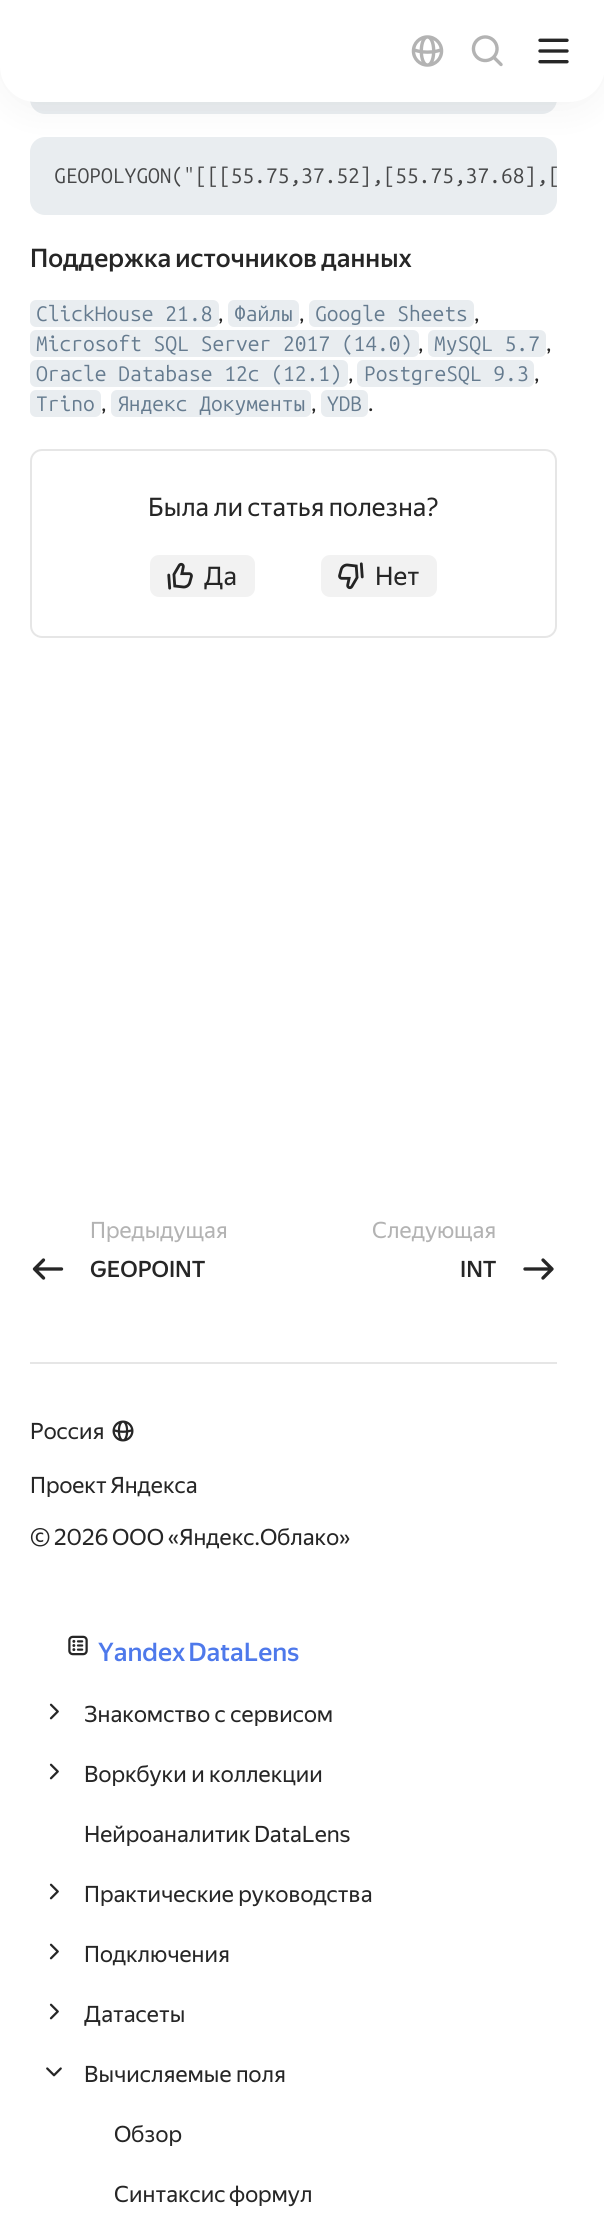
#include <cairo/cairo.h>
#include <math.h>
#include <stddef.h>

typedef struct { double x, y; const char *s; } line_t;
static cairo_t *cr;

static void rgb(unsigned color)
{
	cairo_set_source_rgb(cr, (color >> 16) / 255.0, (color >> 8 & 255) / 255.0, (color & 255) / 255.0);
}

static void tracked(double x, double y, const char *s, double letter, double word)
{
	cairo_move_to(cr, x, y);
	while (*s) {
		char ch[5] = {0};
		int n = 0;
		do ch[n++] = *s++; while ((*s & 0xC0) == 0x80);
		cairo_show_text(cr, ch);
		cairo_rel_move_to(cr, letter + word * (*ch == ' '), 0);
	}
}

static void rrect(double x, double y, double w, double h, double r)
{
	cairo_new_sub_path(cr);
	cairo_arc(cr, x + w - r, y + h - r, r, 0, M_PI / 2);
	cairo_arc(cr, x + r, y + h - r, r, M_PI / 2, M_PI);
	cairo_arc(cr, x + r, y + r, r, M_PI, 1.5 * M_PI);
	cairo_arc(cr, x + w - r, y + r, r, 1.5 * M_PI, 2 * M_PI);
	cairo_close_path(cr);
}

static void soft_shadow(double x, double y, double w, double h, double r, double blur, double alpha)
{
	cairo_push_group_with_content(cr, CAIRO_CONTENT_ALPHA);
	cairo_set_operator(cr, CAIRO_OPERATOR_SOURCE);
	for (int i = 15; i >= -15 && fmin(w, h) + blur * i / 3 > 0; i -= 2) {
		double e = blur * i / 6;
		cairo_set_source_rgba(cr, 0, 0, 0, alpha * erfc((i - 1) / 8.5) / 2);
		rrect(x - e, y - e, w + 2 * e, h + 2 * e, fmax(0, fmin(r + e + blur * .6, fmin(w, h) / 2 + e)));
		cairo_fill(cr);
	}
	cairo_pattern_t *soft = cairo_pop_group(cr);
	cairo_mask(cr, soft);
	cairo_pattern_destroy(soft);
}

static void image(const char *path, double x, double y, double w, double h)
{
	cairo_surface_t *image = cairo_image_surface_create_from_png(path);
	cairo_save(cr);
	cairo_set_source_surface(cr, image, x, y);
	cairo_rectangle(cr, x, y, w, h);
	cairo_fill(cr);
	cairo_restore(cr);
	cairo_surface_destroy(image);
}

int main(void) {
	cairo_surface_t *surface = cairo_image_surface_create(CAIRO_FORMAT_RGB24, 604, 2231);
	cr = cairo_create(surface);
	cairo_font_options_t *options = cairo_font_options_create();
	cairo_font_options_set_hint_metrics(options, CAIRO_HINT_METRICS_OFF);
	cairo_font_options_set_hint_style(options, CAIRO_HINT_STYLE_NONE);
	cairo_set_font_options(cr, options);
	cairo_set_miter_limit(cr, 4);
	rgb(0xffffff);
	cairo_paint(cr);
	rgb(0xe9edf0);
	rrect(30, 36, 527, 78, 15);
	cairo_fill(cr);
	rrect(30, 137, 527, 78, 15);
	cairo_fill(cr);
	rgb(0x000000);
	soft_shadow(0, 6, 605, 102, 36, 18, 0.05);
	rgb(0xffffff);
	cairo_new_path(cr);
	cairo_move_to(cr, 0, 0);
	cairo_line_to(cr, 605, 0);
	cairo_line_to(cr, 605, 66);
	cairo_curve_to(cr, 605, 86, 589, 102, 569, 102);
	cairo_line_to(cr, 36, 102);
	cairo_curve_to(cr, 16, 102, 0, 86, 0, 66);
	cairo_close_path(cr);
	cairo_fill(cr);
	image("img/1.png", 411, 35, 33, 32);
	image("img/2.png", 471, 35, 32, 32);
	image("img/3.png", 538, 38, 31, 26);
	rgb(0xe9edf0);
	rrect(30, 300, 189, 27, 6);
	cairo_fill(cr);
	rrect(228, 300, 71, 27, 6);
	cairo_fill(cr);
	rrect(309, 300, 165, 27, 6);
	cairo_fill(cr);
	rrect(30, 330, 389, 27, 6);
	cairo_fill(cr);
	rrect(428, 330, 118, 27, 6);
	cairo_fill(cr);
	rrect(30, 360, 318, 27, 6);
	cairo_fill(cr);
	rrect(357, 360, 177, 27, 6);
	cairo_fill(cr);
	rrect(30, 390, 71, 27, 6);
	cairo_fill(cr);
	rrect(111, 390, 200, 27, 6);
	cairo_fill(cr);
	rrect(321, 390, 47, 27, 6);
	cairo_fill(cr);
	rrect(31, 450, 525, 187, 11);
	rgb(0xe6e6e6);
	cairo_stroke(cr);
	rgb(0xf2f2f2);
	rrect(150, 555, 105, 42, 9);
	cairo_fill(cr);
	image("img/4.png", 167, 562, 26, 28);
	rrect(321, 555, 116, 42, 9);
	cairo_fill(cr);
	image("img/5.png", 338, 562, 26, 28);
	image("img/6.png", 32, 1258, 32, 22);
	image("img/7.png", 523, 1258, 31, 22);
	rgb(0xe6e6e6);
	cairo_rectangle(cr, 30, 1362, 527, 2);
	cairo_fill(cr);
	image("img/8.png", 112, 1420, 22, 22);
	image("img/9.png", 68, 1635, 20, 21);
	image("img/10.png", 49, 1703, 10, 17);
	image("img/10.png", 49, 1763, 10, 17);
	image("img/10.png", 49, 1883, 10, 17);
	image("img/10.png", 49, 1943, 10, 17);
	image("img/10.png", 49, 2003, 10, 17);
	image("img/11.png", 46, 2067, 16, 10);
	cairo_select_font_face(cr, "Ubuntu Mono", CAIRO_FONT_SLANT_NORMAL, CAIRO_FONT_WEIGHT_NORMAL);
	cairo_set_font_size(cr, 21);
	rgb(0x464748);
	cairo_move_to(cr, 54, 183);
	cairo_show_text(cr, "GEOPOLYGON(\"[[[55.75,37.52],[55.75,37.68],[");
	cairo_select_font_face(cr, "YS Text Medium", CAIRO_FONT_SLANT_NORMAL, CAIRO_FONT_WEIGHT_NORMAL);
	cairo_set_font_size(cr, 25.5);
	rgb(0x262626);
	tracked(30, 267, "Поддержка источников данных", 0, -1);
	cairo_select_font_face(cr, "Ubuntu Mono", CAIRO_FONT_SLANT_NORMAL, CAIRO_FONT_WEIGHT_NORMAL);
	cairo_set_font_size(cr, 21);
	rgb(0x657b8f);
	cairo_move_to(cr, 36, 321);
	cairo_show_text(cr, "ClickHouse 21.8");
	cairo_select_font_face(cr, "YS Text", CAIRO_FONT_SLANT_NORMAL, CAIRO_FONT_WEIGHT_NORMAL);
	cairo_set_font_size(cr, 22.5);
	rgb(0x262626);
	cairo_move_to(cr, 218, 321);
	cairo_show_text(cr, ",");
	cairo_select_font_face(cr, "Ubuntu Mono", CAIRO_FONT_SLANT_NORMAL, CAIRO_FONT_WEIGHT_NORMAL);
	cairo_set_font_size(cr, 21);
	rgb(0x657b8f);
	cairo_move_to(cr, 234, 321);
	cairo_show_text(cr, "Файлы");
	cairo_select_font_face(cr, "YS Text", CAIRO_FONT_SLANT_NORMAL, CAIRO_FONT_WEIGHT_NORMAL);
	cairo_set_font_size(cr, 22.5);
	rgb(0x262626);
	cairo_move_to(cr, 299, 321);
	cairo_show_text(cr, ",");
	cairo_select_font_face(cr, "Ubuntu Mono", CAIRO_FONT_SLANT_NORMAL, CAIRO_FONT_WEIGHT_NORMAL);
	cairo_set_font_size(cr, 21);
	rgb(0x657b8f);
	cairo_move_to(cr, 315, 321);
	cairo_show_text(cr, "Google Sheets");
	cairo_select_font_face(cr, "YS Text", CAIRO_FONT_SLANT_NORMAL, CAIRO_FONT_WEIGHT_NORMAL);
	cairo_set_font_size(cr, 22.5);
	rgb(0x262626);
	cairo_move_to(cr, 474, 321);
	cairo_show_text(cr, ",");
	cairo_select_font_face(cr, "Ubuntu Mono", CAIRO_FONT_SLANT_NORMAL, CAIRO_FONT_WEIGHT_NORMAL);
	cairo_set_font_size(cr, 21);
	rgb(0x657b8f);
	cairo_move_to(cr, 36, 351);
	cairo_show_text(cr, "Microsoft SQL Server 2017 (14.0)");
	cairo_select_font_face(cr, "YS Text", CAIRO_FONT_SLANT_NORMAL, CAIRO_FONT_WEIGHT_NORMAL);
	cairo_set_font_size(cr, 22.5);
	rgb(0x262626);
	cairo_move_to(cr, 418, 351);
	cairo_show_text(cr, ",");
	cairo_select_font_face(cr, "Ubuntu Mono", CAIRO_FONT_SLANT_NORMAL, CAIRO_FONT_WEIGHT_NORMAL);
	cairo_set_font_size(cr, 21);
	rgb(0x657b8f);
	cairo_move_to(cr, 434, 351);
	cairo_show_text(cr, "MySQL 5.7");
	cairo_select_font_face(cr, "YS Text", CAIRO_FONT_SLANT_NORMAL, CAIRO_FONT_WEIGHT_NORMAL);
	cairo_set_font_size(cr, 22.5);
	rgb(0x262626);
	cairo_move_to(cr, 546, 351);
	cairo_show_text(cr, ",");
	cairo_select_font_face(cr, "Ubuntu Mono", CAIRO_FONT_SLANT_NORMAL, CAIRO_FONT_WEIGHT_NORMAL);
	cairo_set_font_size(cr, 21);
	rgb(0x657b8f);
	cairo_move_to(cr, 36, 381);
	cairo_show_text(cr, "Oracle Database 12c (12.1)");
	cairo_select_font_face(cr, "YS Text", CAIRO_FONT_SLANT_NORMAL, CAIRO_FONT_WEIGHT_NORMAL);
	cairo_set_font_size(cr, 22.5);
	rgb(0x262626);
	cairo_move_to(cr, 348, 381);
	cairo_show_text(cr, ",");
	cairo_select_font_face(cr, "Ubuntu Mono", CAIRO_FONT_SLANT_NORMAL, CAIRO_FONT_WEIGHT_NORMAL);
	cairo_set_font_size(cr, 21);
	rgb(0x657b8f);
	cairo_move_to(cr, 364, 381);
	cairo_show_text(cr, "PostgreSQL 9.3");
	cairo_select_font_face(cr, "YS Text", CAIRO_FONT_SLANT_NORMAL, CAIRO_FONT_WEIGHT_NORMAL);
	cairo_set_font_size(cr, 22.5);
	rgb(0x262626);
	cairo_move_to(cr, 534, 381);
	cairo_show_text(cr, ",");
	cairo_select_font_face(cr, "Ubuntu Mono", CAIRO_FONT_SLANT_NORMAL, CAIRO_FONT_WEIGHT_NORMAL);
	cairo_set_font_size(cr, 21);
	rgb(0x657b8f);
	cairo_move_to(cr, 36, 411);
	cairo_show_text(cr, "Trino");
	cairo_select_font_face(cr, "YS Text", CAIRO_FONT_SLANT_NORMAL, CAIRO_FONT_WEIGHT_NORMAL);
	cairo_set_font_size(cr, 22.5);
	rgb(0x262626);
	cairo_move_to(cr, 101, 411);
	cairo_show_text(cr, ",");
	cairo_select_font_face(cr, "Ubuntu Mono", CAIRO_FONT_SLANT_NORMAL, CAIRO_FONT_WEIGHT_NORMAL);
	cairo_set_font_size(cr, 21);
	rgb(0x657b8f);
	cairo_move_to(cr, 117, 411);
	cairo_show_text(cr, "Яндекс Документы");
	cairo_select_font_face(cr, "YS Text", CAIRO_FONT_SLANT_NORMAL, CAIRO_FONT_WEIGHT_NORMAL);
	cairo_set_font_size(cr, 22.5);
	rgb(0x262626);
	cairo_move_to(cr, 311, 411);
	cairo_show_text(cr, ",");
	cairo_select_font_face(cr, "Ubuntu Mono", CAIRO_FONT_SLANT_NORMAL, CAIRO_FONT_WEIGHT_NORMAL);
	cairo_set_font_size(cr, 21);
	rgb(0x657b8f);
	cairo_move_to(cr, 327, 411);
	cairo_show_text(cr, "YDB");
	cairo_select_font_face(cr, "YS Text", CAIRO_FONT_SLANT_NORMAL, CAIRO_FONT_WEIGHT_NORMAL);
	cairo_set_font_size(cr, 22.5);
	rgb(0x262626);
	cairo_move_to(cr, 368, 411);
	cairo_show_text(cr, ".");
	cairo_set_font_size(cr, 25.5);
	tracked(148, 516, "Была ли статья полезна?", 0, -0.5);
	cairo_move_to(cr, 204, 585);
	cairo_show_text(cr, "Да");
	cairo_move_to(cr, 375, 585);
	cairo_show_text(cr, "Нет");
	cairo_set_font_size(cr, 22.5);
	rgb(0xb3b3b3);
	cairo_move_to(cr, 90, 1238);
	cairo_show_text(cr, "Предыдущая");
	cairo_select_font_face(cr, "YS Text Medium", CAIRO_FONT_SLANT_NORMAL, CAIRO_FONT_WEIGHT_NORMAL);
	rgb(0x262626);
	cairo_move_to(cr, 90, 1277);
	cairo_show_text(cr, "GEOPOINT");
	cairo_select_font_face(cr, "YS Text", CAIRO_FONT_SLANT_NORMAL, CAIRO_FONT_WEIGHT_NORMAL);
	rgb(0xb3b3b3);
	cairo_move_to(cr, 372, 1238);
	cairo_show_text(cr, "Следующая");
	cairo_select_font_face(cr, "YS Text Medium", CAIRO_FONT_SLANT_NORMAL, CAIRO_FONT_WEIGHT_NORMAL);
	rgb(0x262626);
	cairo_move_to(cr, 460, 1277);
	cairo_show_text(cr, "INT");
	cairo_select_font_face(cr, "YS Text", CAIRO_FONT_SLANT_NORMAL, CAIRO_FONT_WEIGHT_NORMAL);
	cairo_move_to(cr, 30, 1439);
	cairo_show_text(cr, "Россия");
	tracked(30, 1493, "Проект Яндекса", 0, -1);
	cairo_select_font_face(cr, "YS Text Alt", CAIRO_FONT_SLANT_NORMAL, CAIRO_FONT_WEIGHT_NORMAL);
	tracked(30, 1545, "© 2026 ООО «Яндекс.Облако»", 0, -1);
	cairo_select_font_face(cr, "YS Text Medium", CAIRO_FONT_SLANT_NORMAL, CAIRO_FONT_WEIGHT_NORMAL);
	cairo_set_font_size(cr, 25.5);
	rgb(0x4e79eb);
	tracked(98, 1661, "Yandex DataLens", 0, -2);
	cairo_select_font_face(cr, "YS Text", CAIRO_FONT_SLANT_NORMAL, CAIRO_FONT_WEIGHT_NORMAL);
	cairo_set_font_size(cr, 22.5);
	rgb(0x262626);
	cairo_move_to(cr, 84, 1722);
	cairo_show_text(cr, "Знакомство с сервисом");
	cairo_move_to(cr, 84, 1782);
	cairo_show_text(cr, "Воркбуки и коллекции");
	tracked(84, 1842, "Нейроаналитик DataLens", 0, -1);
	{
		static const line_t items[] = {
			{84, 1902, "Практические руководства"},
			{84, 1962, "Подключения"},
			{84, 2022, "Датасеты"},
			{84, 2082, "Вычисляемые поля"},
			{114, 2142, "Обзор"},
		};
		for (size_t i = 0; i < sizeof items / sizeof *items; i++) {
			cairo_move_to(cr, items[i].x, items[i].y);
			cairo_show_text(cr, items[i].s);
		}
	}
	tracked(114, 2202, "Синтаксис формул", 0, -1);
	cairo_surface_write_to_png(surface, "page.png");
	cairo_font_options_destroy(options);
	cairo_destroy(cr);
	cairo_surface_destroy(surface);
	return 0;
}
